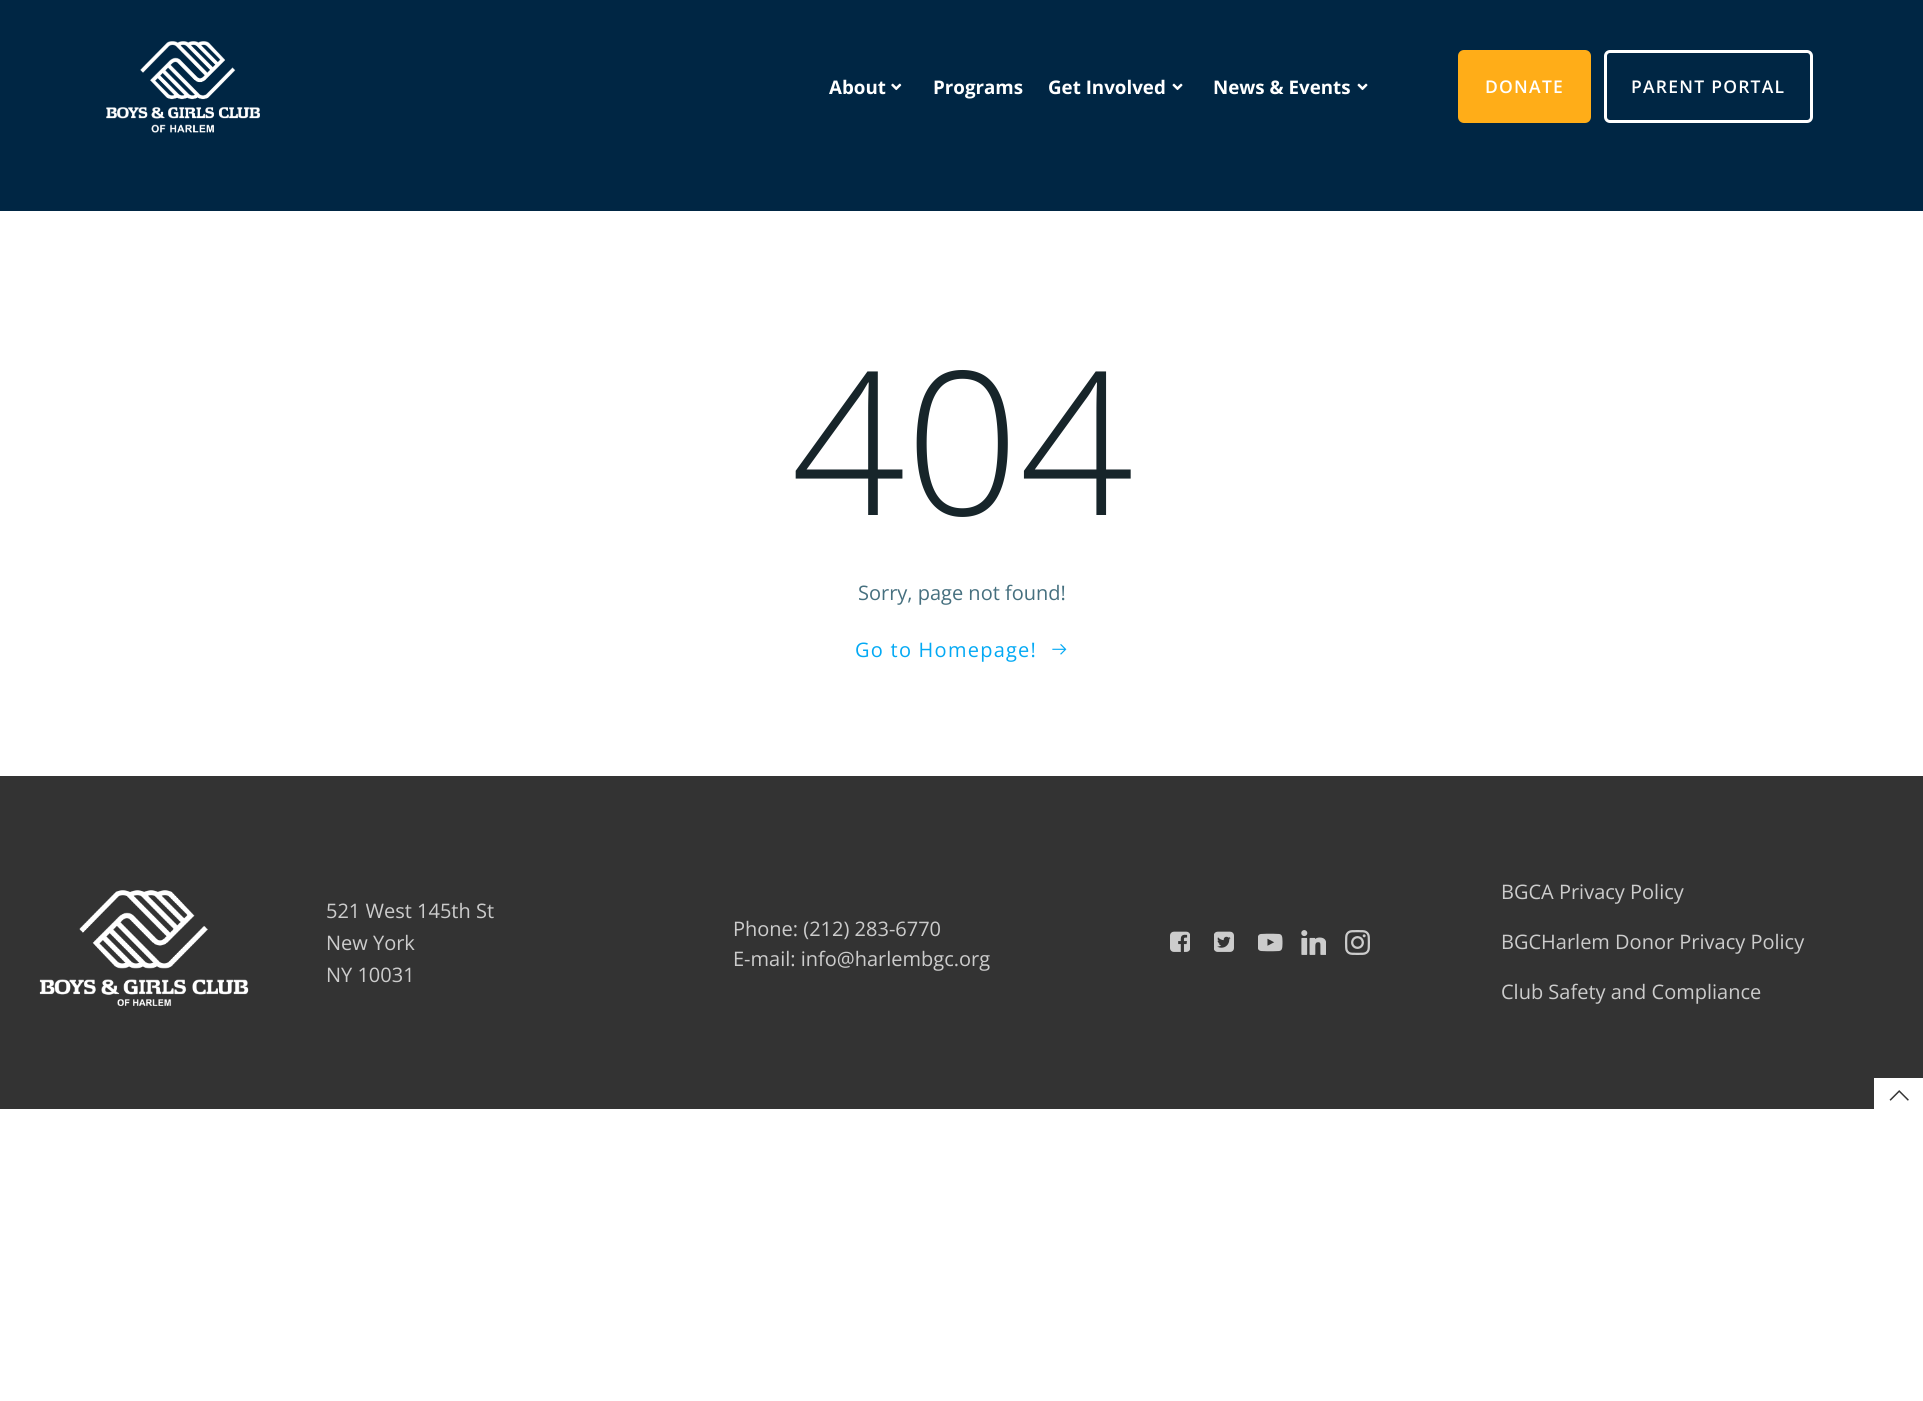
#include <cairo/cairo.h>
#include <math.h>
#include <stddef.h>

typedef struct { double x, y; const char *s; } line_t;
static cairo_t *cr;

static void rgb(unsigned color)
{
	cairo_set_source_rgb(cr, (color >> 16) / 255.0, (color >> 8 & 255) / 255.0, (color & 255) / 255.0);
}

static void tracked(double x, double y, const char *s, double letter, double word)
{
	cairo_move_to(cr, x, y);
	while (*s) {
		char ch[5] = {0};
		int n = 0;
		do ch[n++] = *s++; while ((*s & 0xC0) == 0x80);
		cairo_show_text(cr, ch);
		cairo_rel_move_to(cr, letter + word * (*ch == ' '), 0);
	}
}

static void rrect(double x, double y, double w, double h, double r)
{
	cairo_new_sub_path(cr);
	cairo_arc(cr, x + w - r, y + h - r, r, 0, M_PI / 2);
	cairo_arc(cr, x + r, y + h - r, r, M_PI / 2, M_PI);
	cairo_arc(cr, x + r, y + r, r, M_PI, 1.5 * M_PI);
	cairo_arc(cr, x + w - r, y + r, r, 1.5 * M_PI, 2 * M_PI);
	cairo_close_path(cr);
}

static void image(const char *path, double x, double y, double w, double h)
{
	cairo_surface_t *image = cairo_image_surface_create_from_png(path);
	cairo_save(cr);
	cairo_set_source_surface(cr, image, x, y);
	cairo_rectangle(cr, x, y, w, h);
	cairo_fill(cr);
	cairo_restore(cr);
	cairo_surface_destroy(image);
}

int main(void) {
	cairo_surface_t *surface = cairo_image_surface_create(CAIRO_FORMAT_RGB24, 1923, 1401);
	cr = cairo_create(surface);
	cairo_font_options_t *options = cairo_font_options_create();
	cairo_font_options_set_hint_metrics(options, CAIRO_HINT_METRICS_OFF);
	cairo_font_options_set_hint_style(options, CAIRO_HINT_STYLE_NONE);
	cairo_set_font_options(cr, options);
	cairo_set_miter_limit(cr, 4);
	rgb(0xffffff);
	cairo_paint(cr);
	rgb(0x002644);
	cairo_rectangle(cr, 0, 0, 1923, 211);
	cairo_fill(cr);
	image("img/1.png", 106, 41, 154, 92);
	image("img/2.png", 891, 83, 11, 8);
	image("img/3.png", 1172, 83, 11, 8);
	image("img/3.png", 1357, 83, 11, 8);
	rgb(0xffad18);
	rrect(1459.5, 51.5, 130, 70, 4.5);
	cairo_fill_preserve(cr);
	cairo_set_line_width(cr, 3);
	cairo_stroke(cr);
	rrect(1605.5, 51.5, 206, 70, 4.5);
	rgb(0xffffff);
	cairo_stroke(cr);
	image("img/4.png", 1052, 644, 15, 11);
	rgb(0x333333);
	cairo_rectangle(cr, 0, 776, 1923, 333);
	cairo_fill(cr);
	image("img/5.png", 39, 890, 210, 116);
	image("img/6.png", 1170, 931, 20, 21);
	image("img/7.png", 1214, 931, 20, 21);
	image("img/8.png", 1258, 933, 25, 19);
	image("img/9.png", 1301, 930, 25, 25);
	image("img/10.png", 1345, 930, 25, 25);
	rgb(0xffffff);
	cairo_rectangle(cr, 1874, 1078, 49, 31);
	cairo_fill(cr);
	image("img/11.png", 1889, 1090, 20, 11);
	cairo_select_font_face(cr, "Open Sans", CAIRO_FONT_SLANT_NORMAL, CAIRO_FONT_WEIGHT_BOLD);
	cairo_set_font_size(cr, 18.75);
	{
		static const line_t items[] = {
			{829, 94, "About"},
			{933, 94, "Programs"},
			{1048, 94, "Get Involved"},
			{1213, 94, "News & Events"},
		};
		for (size_t i = 0; i < sizeof items / sizeof *items; i++) {
			cairo_move_to(cr, items[i].x, items[i].y);
			cairo_show_text(cr, items[i].s);
		}
	}
	cairo_select_font_face(cr, "Open Sans SemiBold", CAIRO_FONT_SLANT_NORMAL, CAIRO_FONT_WEIGHT_NORMAL);
	cairo_set_font_size(cr, 17.5);
	tracked(1485, 93, "DONATE", 1.25, 0);
	tracked(1631, 93, "PARENT PORTAL", 1.25, 0);
	cairo_select_font_face(cr, "Open Sans Light", CAIRO_FONT_SLANT_NORMAL, CAIRO_FONT_WEIGHT_NORMAL);
	cairo_set_font_size(cr, 200);
	rgb(0x17252a);
	cairo_move_to(cr, 791, 515);
	cairo_show_text(cr, "404");
	cairo_select_font_face(cr, "Open Sans", CAIRO_FONT_SLANT_NORMAL, CAIRO_FONT_WEIGHT_NORMAL);
	cairo_set_font_size(cr, 20);
	rgb(0x46707f);
	cairo_move_to(cr, 858, 600);
	cairo_show_text(cr, "Sorry, page not found!");
	rgb(0x03a9f4);
	tracked(855, 657, "Go to Homepage!", 1.25, 0);
	rgb(0xcccccc);
	{
		static const line_t items[] = {
			{326, 918, "521 West 145th St"},
			{326, 950, "New York"},
			{326, 982, "NY 10031"},
			{733, 936, "Phone: (212) 283-6770"},
			{733, 966, "E-mail: info@harlembgc.org"},
			{1501, 899, "BGCA Privacy Policy"},
			{1501, 949, "BGCHarlem Donor Privacy Policy"},
			{1501, 999, "Club Safety and Compliance"},
		};
		for (size_t i = 0; i < sizeof items / sizeof *items; i++) {
			cairo_move_to(cr, items[i].x, items[i].y);
			cairo_show_text(cr, items[i].s);
		}
	}
	cairo_surface_write_to_png(surface, "page.png");
	cairo_font_options_destroy(options);
	cairo_destroy(cr);
	cairo_surface_destroy(surface);
	return 0;
}
